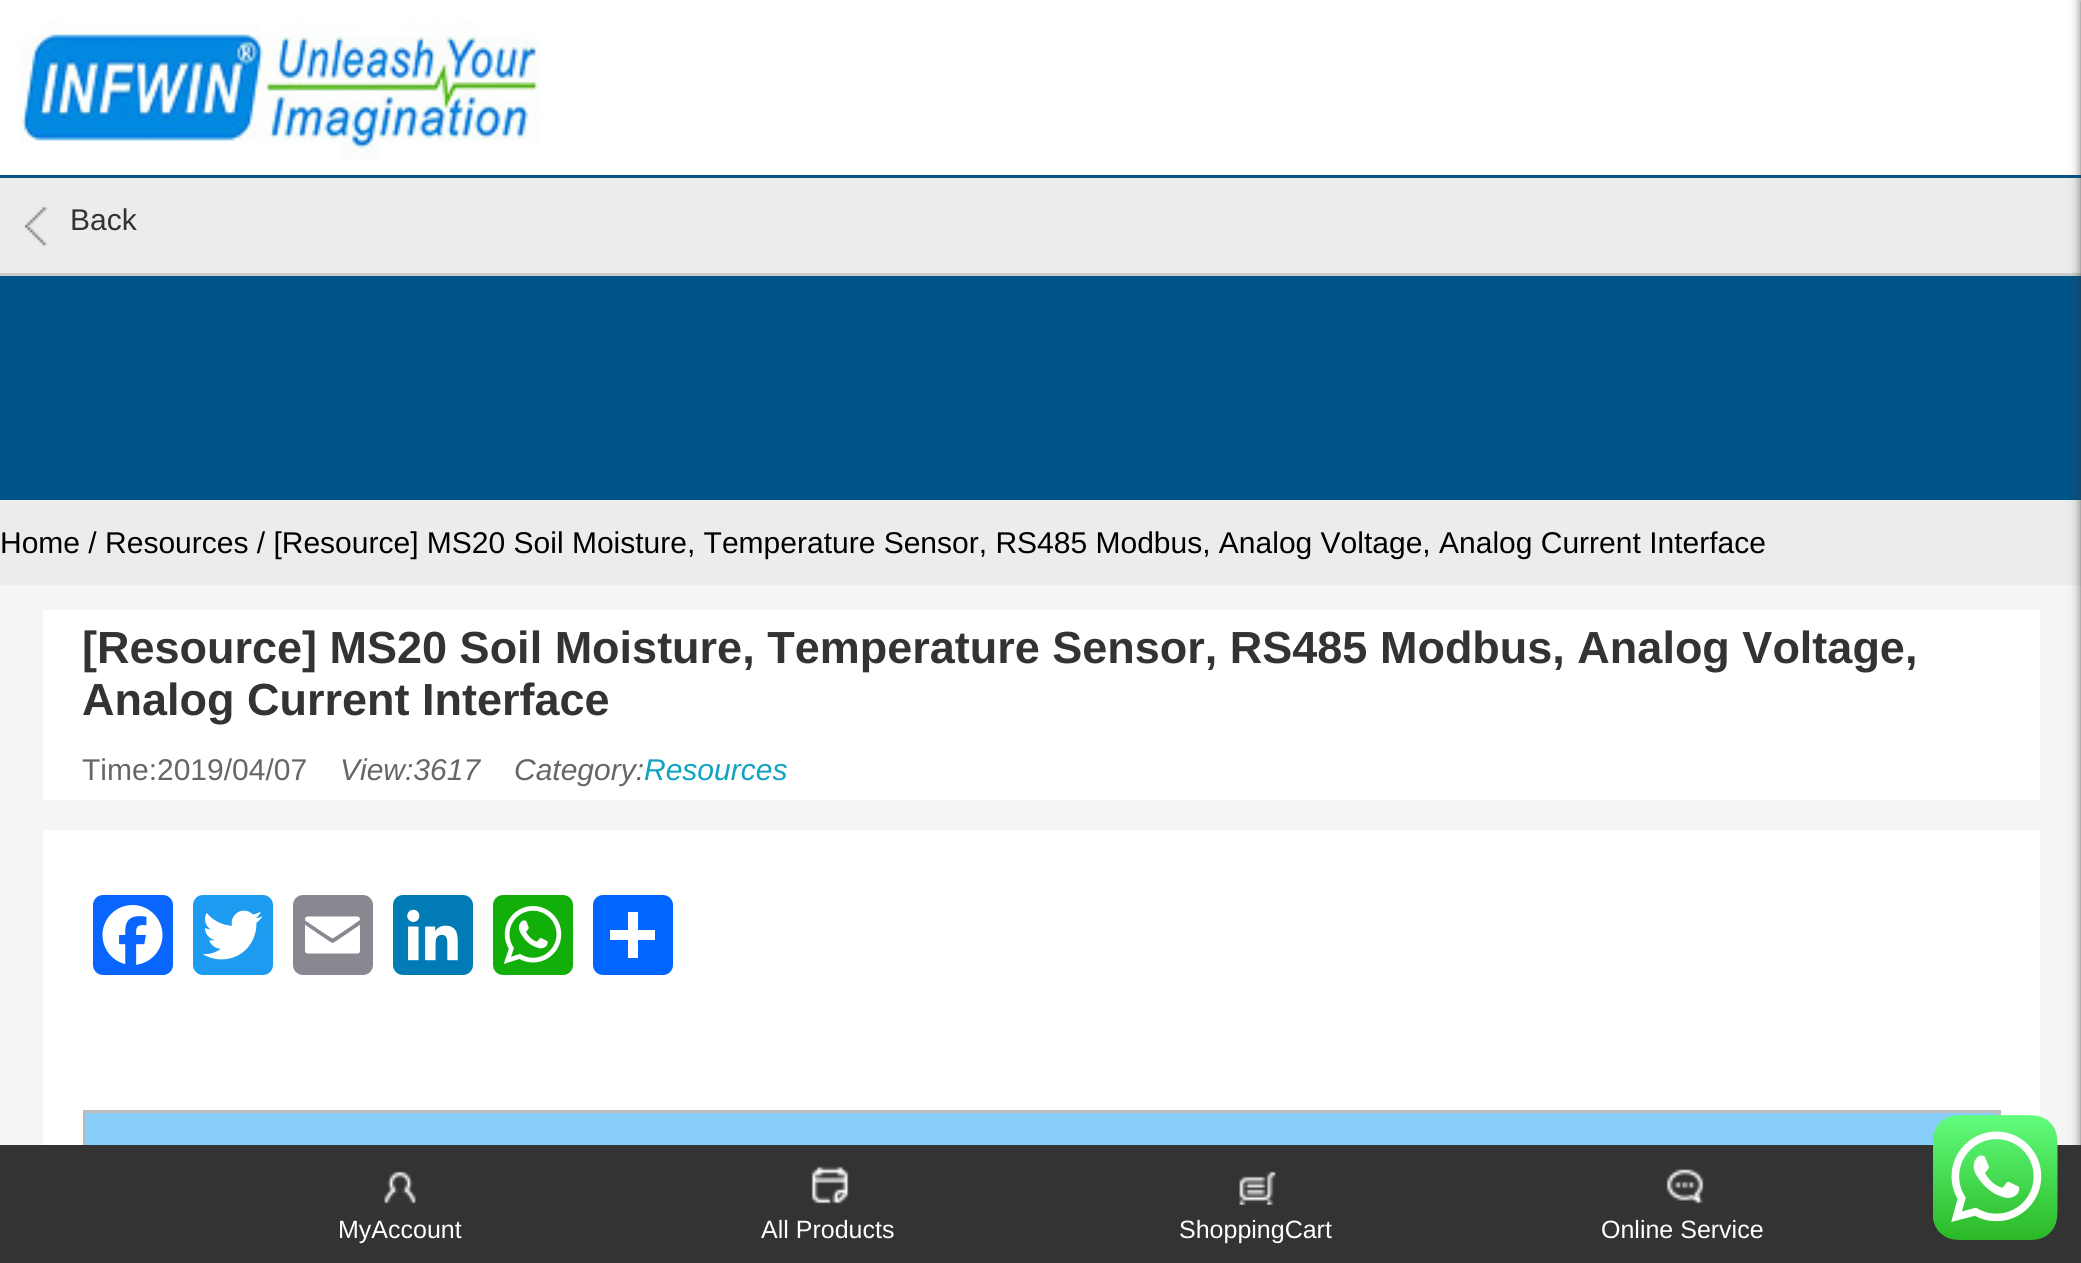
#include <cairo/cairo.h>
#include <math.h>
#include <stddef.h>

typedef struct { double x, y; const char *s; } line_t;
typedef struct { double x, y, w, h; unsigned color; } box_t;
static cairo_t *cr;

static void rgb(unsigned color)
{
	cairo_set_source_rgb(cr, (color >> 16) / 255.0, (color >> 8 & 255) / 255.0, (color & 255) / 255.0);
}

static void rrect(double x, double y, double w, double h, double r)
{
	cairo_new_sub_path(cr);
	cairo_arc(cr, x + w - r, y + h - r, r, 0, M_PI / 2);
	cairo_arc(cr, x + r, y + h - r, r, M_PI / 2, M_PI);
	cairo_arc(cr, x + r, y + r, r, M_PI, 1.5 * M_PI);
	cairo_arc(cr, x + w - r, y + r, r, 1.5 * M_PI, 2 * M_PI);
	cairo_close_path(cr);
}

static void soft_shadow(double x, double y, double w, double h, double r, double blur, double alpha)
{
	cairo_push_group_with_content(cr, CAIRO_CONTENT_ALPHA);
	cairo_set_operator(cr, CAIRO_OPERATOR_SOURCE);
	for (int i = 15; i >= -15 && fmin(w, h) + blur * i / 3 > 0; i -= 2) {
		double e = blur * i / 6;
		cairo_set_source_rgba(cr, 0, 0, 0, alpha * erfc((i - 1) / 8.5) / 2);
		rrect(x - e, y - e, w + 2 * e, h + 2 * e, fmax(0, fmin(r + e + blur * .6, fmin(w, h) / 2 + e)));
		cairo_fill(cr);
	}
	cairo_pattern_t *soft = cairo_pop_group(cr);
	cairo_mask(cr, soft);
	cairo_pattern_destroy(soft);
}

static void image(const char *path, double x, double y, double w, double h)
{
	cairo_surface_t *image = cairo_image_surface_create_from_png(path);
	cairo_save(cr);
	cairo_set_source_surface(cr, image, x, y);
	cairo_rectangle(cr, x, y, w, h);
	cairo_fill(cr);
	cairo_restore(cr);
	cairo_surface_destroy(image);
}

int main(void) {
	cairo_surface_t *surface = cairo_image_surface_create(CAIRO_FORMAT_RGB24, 2081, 1263);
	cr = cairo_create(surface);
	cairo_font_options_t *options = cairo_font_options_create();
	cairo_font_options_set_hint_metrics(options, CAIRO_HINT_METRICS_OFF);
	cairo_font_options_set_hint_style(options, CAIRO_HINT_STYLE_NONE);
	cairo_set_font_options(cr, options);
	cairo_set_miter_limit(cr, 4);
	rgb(0xf5f5f5);
	cairo_paint(cr);
	rgb(0xffffff);
	cairo_rectangle(cr, 0, 0, 2081, 175);
	cairo_fill(cr);
	image("img/1.png", 20, 21, 520, 139);
	image("img/2.png", 0, 175, 2081, 325);
	rgb(0xececec);
	cairo_rectangle(cr, 0, 178, 2081, 95);
	cairo_fill(cr);
	rgb(0xcccccc);
	cairo_rectangle(cr, 0, 273, 2081, 3);
	cairo_fill(cr);
	image("img/3.png", 25, 206, 23, 40);
	{
		static const box_t items[] = {
			{0, 500, 2081, 85, 0xececec},
			{43, 610, 1997, 190, 0xffffff},
			{43, 830, 1997, 315, 0xffffff},
		};
		for (size_t i = 0; i < sizeof items / sizeof *items; i++) {
			rgb(items[i].color);
			cairo_rectangle(cr, items[i].x, items[i].y, items[i].w, items[i].h);
			cairo_fill(cr);
		}
	}
	rgb(0x0866ff);
	rrect(93, 895, 80, 80, 10);
	cairo_fill(cr);
	image("img/4.png", 102, 905, 61, 60);
	rgb(0x1d9bf0);
	rrect(193, 895, 80, 80, 10);
	cairo_fill(cr);
	image("img/5.png", 202, 910, 61, 50);
	rgb(0x888990);
	rrect(293, 895, 80, 80, 10);
	cairo_fill(cr);
	image("img/6.png", 305, 916, 55, 38);
	rgb(0x007bb5);
	rrect(393, 895, 80, 80, 10);
	cairo_fill(cr);
	image("img/7.png", 407, 909, 51, 52);
	rgb(0x12af0a);
	rrect(493, 895, 80, 80, 10);
	cairo_fill(cr);
	image("img/8.png", 503, 906, 59, 58);
	rgb(0x0166ff);
	rrect(593, 895, 80, 80, 10);
	cairo_fill(cr);
	{
		static const box_t items[] = {
			{628, 912, 10, 46, 0xffffff},
			{610, 930, 45, 10, 0xffffff},
			{86, 1113, 1912, 32, 0x87cefa},
			{83, 1110, 1917, 3, 0xbbbbbb},
			{1998, 1110, 3, 6, 0xbbbbbb},
			{83, 1110, 3, 35, 0xbbbbbb},
		};
		for (size_t i = 0; i < sizeof items / sizeof *items; i++) {
			rgb(items[i].color);
			cairo_rectangle(cr, items[i].x, items[i].y, items[i].w, items[i].h);
			cairo_fill(cr);
		}
	}
	rgb(0x333333);
	soft_shadow(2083, 0, 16, 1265, 0, 6, 1);
	rgb(0x333333);
	cairo_rectangle(cr, 0, 1145, 2081, 118);
	cairo_fill(cr);
	image("img/9.png", 384, 1171, 32, 33);
	image("img/10.png", 811, 1166, 38, 38);
	image("img/11.png", 1239, 1171, 37, 34);
	image("img/12.png", 1666, 1169, 38, 35);
	image("img/13.png", 1933, 1115, 125, 125);
	cairo_select_font_face(cr, "Liberation Sans", CAIRO_FONT_SLANT_NORMAL, CAIRO_FONT_WEIGHT_NORMAL);
	cairo_set_font_size(cr, 30);
	cairo_move_to(cr, 70, 230);
	cairo_show_text(cr, "Back");
	rgb(0x000000);
	cairo_move_to(cr, 0, 553);
	cairo_show_text(cr, "Home / Resources / [Resource] MS20 Soil Moisture, Temperature Sensor, RS485 Modbus, Analog Voltage, Analog Current Interface");
	cairo_select_font_face(cr, "Liberation Sans", CAIRO_FONT_SLANT_NORMAL, CAIRO_FONT_WEIGHT_BOLD);
	cairo_set_font_size(cr, 45);
	rgb(0x333333);
	cairo_move_to(cr, 82, 663);
	cairo_show_text(cr, "[Resource] MS20 Soil Moisture, Temperature Sensor, RS485 Modbus, Analog Voltage,");
	cairo_move_to(cr, 82, 715);
	cairo_show_text(cr, "Analog Current Interface");
	cairo_select_font_face(cr, "Liberation Sans", CAIRO_FONT_SLANT_NORMAL, CAIRO_FONT_WEIGHT_NORMAL);
	cairo_set_font_size(cr, 30);
	rgb(0x666666);
	cairo_move_to(cr, 82, 780);
	cairo_show_text(cr, "Time:2019/04/07");
	cairo_select_font_face(cr, "Liberation Sans", CAIRO_FONT_SLANT_ITALIC, CAIRO_FONT_WEIGHT_NORMAL);
	cairo_move_to(cr, 340, 780);
	cairo_show_text(cr, "View:3617");
	cairo_move_to(cr, 514, 780);
	cairo_show_text(cr, "Category:");
	rgb(0x11a3c2);
	cairo_move_to(cr, 644, 780);
	cairo_show_text(cr, "Resources");
	cairo_select_font_face(cr, "Liberation Sans", CAIRO_FONT_SLANT_NORMAL, CAIRO_FONT_WEIGHT_NORMAL);
	cairo_set_font_size(cr, 25);
	rgb(0xffffff);
	{
		static const line_t items[] = {
			{338, 1238, "MyAccount"},
			{761, 1238, "All Products"},
			{1179, 1238, "ShoppingCart"},
			{1601, 1238, "Online Service"},
		};
		for (size_t i = 0; i < sizeof items / sizeof *items; i++) {
			cairo_move_to(cr, items[i].x, items[i].y);
			cairo_show_text(cr, items[i].s);
		}
	}
	cairo_surface_write_to_png(surface, "page.png");
	cairo_font_options_destroy(options);
	cairo_destroy(cr);
	cairo_surface_destroy(surface);
	return 0;
}
